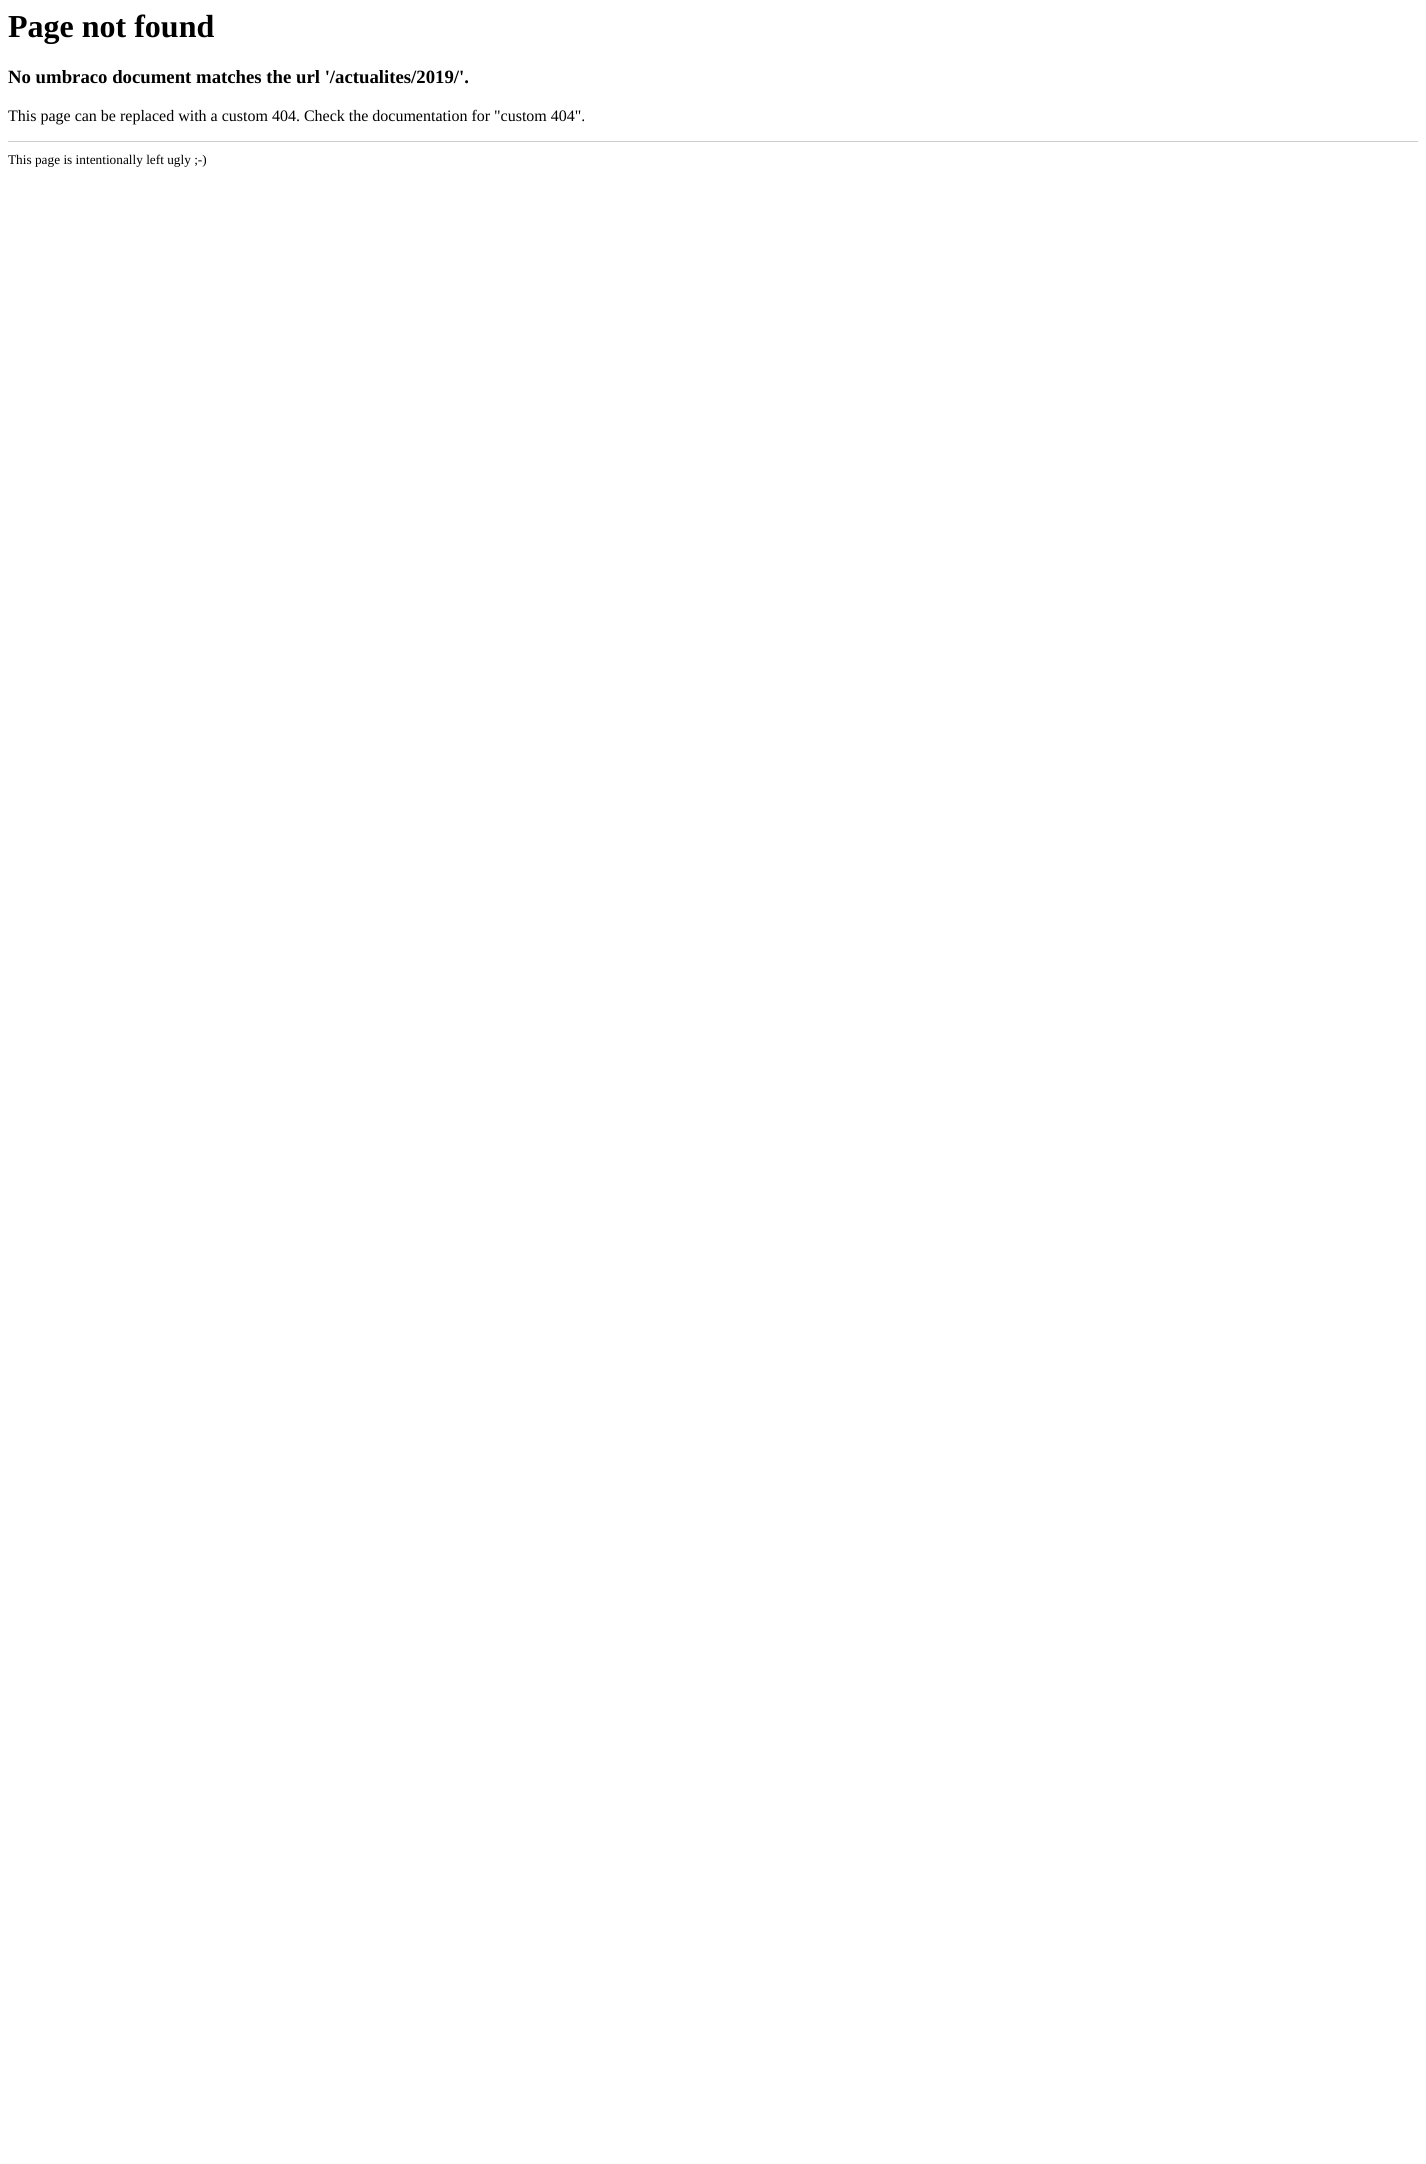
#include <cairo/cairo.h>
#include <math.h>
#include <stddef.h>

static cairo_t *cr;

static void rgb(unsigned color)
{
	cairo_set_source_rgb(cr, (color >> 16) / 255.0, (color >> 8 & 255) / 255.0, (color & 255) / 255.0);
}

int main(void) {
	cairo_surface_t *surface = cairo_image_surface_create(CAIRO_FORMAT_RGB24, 1426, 2164);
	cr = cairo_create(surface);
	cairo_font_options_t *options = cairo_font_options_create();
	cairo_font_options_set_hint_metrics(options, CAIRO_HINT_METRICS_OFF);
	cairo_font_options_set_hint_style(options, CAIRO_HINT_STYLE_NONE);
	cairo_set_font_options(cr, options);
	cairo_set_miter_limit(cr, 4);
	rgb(0xffffff);
	cairo_paint(cr);
	rgb(0xcccccc);
	cairo_rectangle(cr, 8, 141, 1410, 1);
	cairo_fill(cr);
	cairo_select_font_face(cr, "Liberation Serif", CAIRO_FONT_SLANT_NORMAL, CAIRO_FONT_WEIGHT_BOLD);
	cairo_set_font_size(cr, 32);
	rgb(0x000000);
	cairo_move_to(cr, 8, 37);
	cairo_show_text(cr, "Page not found");
	cairo_set_font_size(cr, 18.75);
	cairo_move_to(cr, 8, 83);
	cairo_show_text(cr, "No umbraco document matches the url '/actualites/2019/'.");
	cairo_select_font_face(cr, "Liberation Serif", CAIRO_FONT_SLANT_NORMAL, CAIRO_FONT_WEIGHT_NORMAL);
	cairo_set_font_size(cr, 16);
	cairo_move_to(cr, 8, 121);
	cairo_show_text(cr, "This page can be replaced with a custom 404. Check the documentation for \"custom 404\".");
	cairo_set_font_size(cr, 13.3);
	cairo_move_to(cr, 8, 164);
	cairo_show_text(cr, "This page is intentionally left ugly ;-)");
	cairo_surface_write_to_png(surface, "page.png");
	cairo_font_options_destroy(options);
	cairo_destroy(cr);
	cairo_surface_destroy(surface);
	return 0;
}
